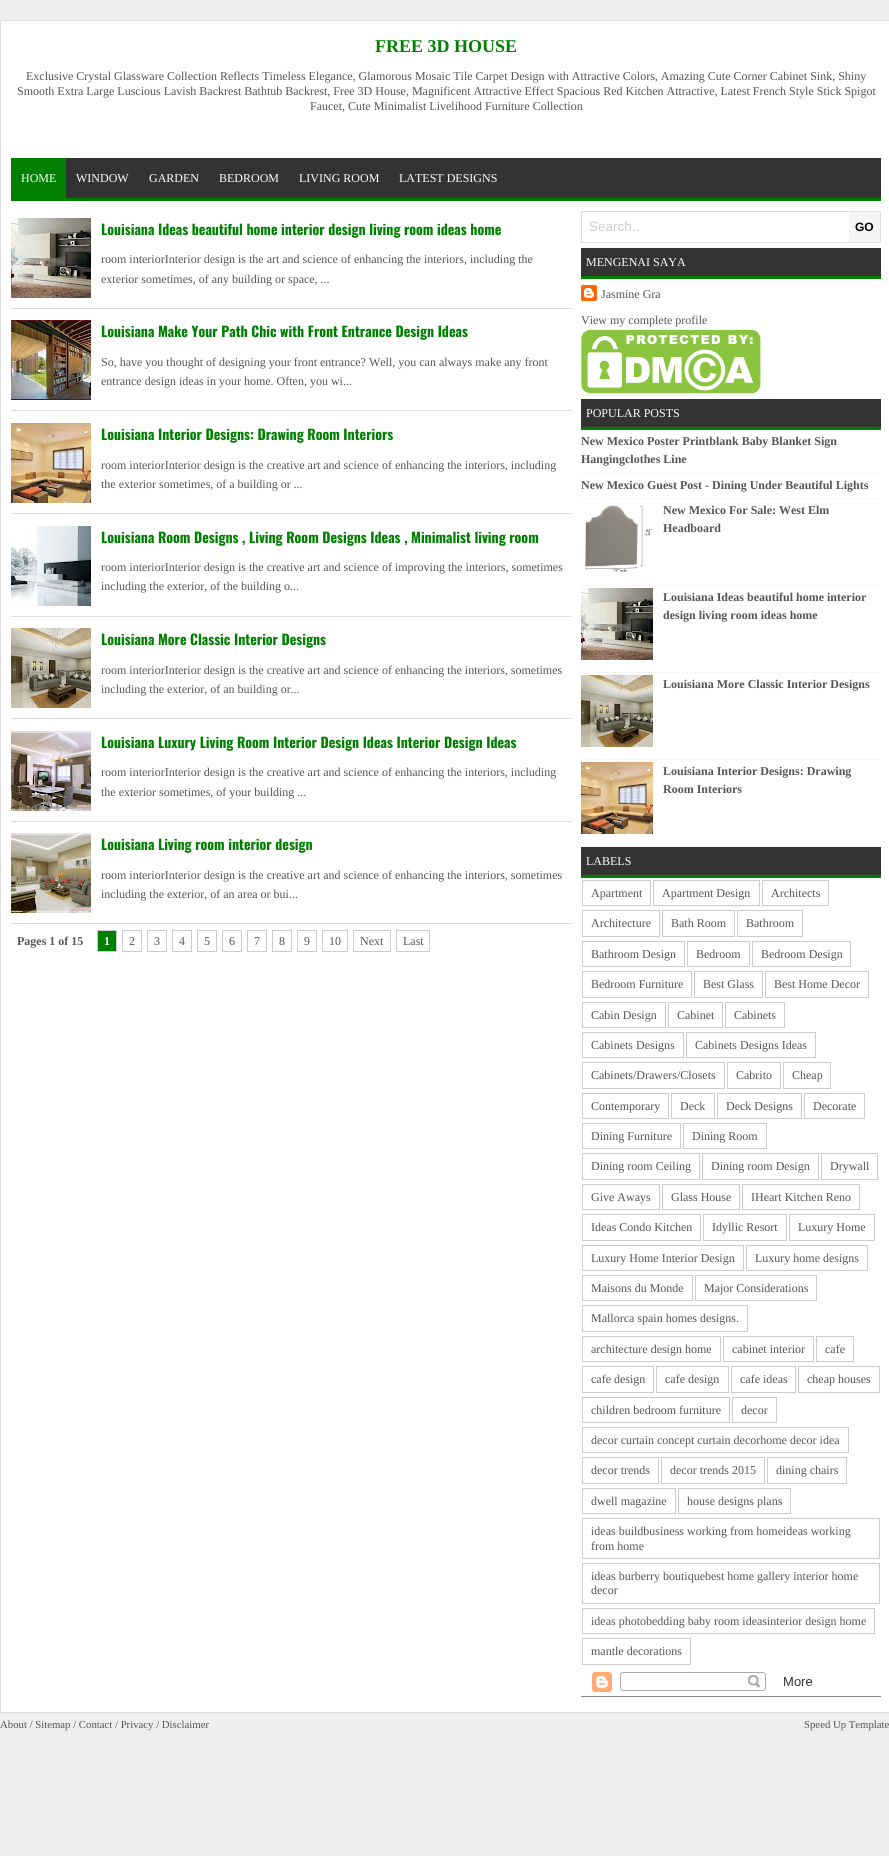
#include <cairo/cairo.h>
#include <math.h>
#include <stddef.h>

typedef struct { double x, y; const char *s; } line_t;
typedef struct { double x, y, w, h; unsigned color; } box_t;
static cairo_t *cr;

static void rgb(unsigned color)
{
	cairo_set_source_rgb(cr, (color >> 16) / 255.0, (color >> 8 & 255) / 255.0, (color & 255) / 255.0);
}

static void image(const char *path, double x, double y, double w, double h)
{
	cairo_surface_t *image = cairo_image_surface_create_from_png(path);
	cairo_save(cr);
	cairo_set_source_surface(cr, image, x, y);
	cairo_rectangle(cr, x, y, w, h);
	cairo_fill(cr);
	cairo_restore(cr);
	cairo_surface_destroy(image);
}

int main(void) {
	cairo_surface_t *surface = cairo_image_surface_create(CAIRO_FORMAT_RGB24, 889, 1856);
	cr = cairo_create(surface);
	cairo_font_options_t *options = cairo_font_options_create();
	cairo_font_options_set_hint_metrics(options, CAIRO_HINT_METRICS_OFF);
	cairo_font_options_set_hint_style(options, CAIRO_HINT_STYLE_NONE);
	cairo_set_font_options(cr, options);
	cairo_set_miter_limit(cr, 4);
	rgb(0xeeeeee);
	cairo_paint(cr);
	rgb(0xffffff);
	cairo_rectangle(cr, 0.5, 20.5, 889, 1692);
	cairo_fill_preserve(cr);
	rgb(0xdddddd);
	cairo_set_line_width(cr, 1);
	cairo_stroke(cr);
	{
		static const box_t items[] = {
			{66, 158, 815, 40, 0x333333},
			{11, 198, 870, 3, 0x008000},
			{11, 158, 55, 40, 0x008000},
			{11, 308, 560, 1, 0xdddddd},
		};
		for (size_t i = 0; i < sizeof items / sizeof *items; i++) {
			rgb(items[i].color);
			cairo_rectangle(cr, items[i].x, items[i].y, items[i].w, items[i].h);
			cairo_fill(cr);
		}
	}
	image("img/1.png", 11, 218, 80, 80);
	cairo_rectangle(cr, 11, 410, 560, 1);
	cairo_fill(cr);
	image("img/2.png", 11, 320, 80, 80);
	cairo_rectangle(cr, 11, 513, 560, 1);
	cairo_fill(cr);
	image("img/3.png", 11, 423, 80, 80);
	cairo_rectangle(cr, 11, 616, 560, 1);
	cairo_fill(cr);
	image("img/4.png", 11, 526, 80, 80);
	cairo_rectangle(cr, 11, 718, 560, 1);
	cairo_fill(cr);
	image("img/5.png", 11, 628, 80, 80);
	cairo_rectangle(cr, 11, 821, 560, 1);
	cairo_fill(cr);
	image("img/6.png", 11, 731, 80, 80);
	cairo_rectangle(cr, 11, 923, 560, 1);
	cairo_fill(cr);
	image("img/7.png", 11, 833, 80, 80);
	rgb(0x008000);
	cairo_rectangle(cr, 97.5, 930.5, 19, 21);
	cairo_fill_preserve(cr);
	rgb(0xcccccc);
	cairo_stroke(cr);
	cairo_rectangle(cr, 122.5, 930.5, 19, 21);
	cairo_stroke(cr);
	cairo_rectangle(cr, 147.5, 930.5, 19, 21);
	cairo_stroke(cr);
	cairo_rectangle(cr, 172.5, 930.5, 19, 21);
	cairo_stroke(cr);
	cairo_rectangle(cr, 197.5, 930.5, 19, 21);
	cairo_stroke(cr);
	cairo_rectangle(cr, 222.5, 930.5, 19, 21);
	cairo_stroke(cr);
	cairo_rectangle(cr, 247.5, 930.5, 19, 21);
	cairo_stroke(cr);
	cairo_rectangle(cr, 272.5, 930.5, 19, 21);
	cairo_stroke(cr);
	cairo_rectangle(cr, 297.5, 930.5, 19, 21);
	cairo_stroke(cr);
	cairo_rectangle(cr, 322.5, 930.5, 25, 21);
	cairo_stroke(cr);
	cairo_rectangle(cr, 353.5, 930.5, 37, 21);
	cairo_stroke(cr);
	cairo_rectangle(cr, 396.5, 930.5, 33, 21);
	cairo_stroke(cr);
	cairo_rectangle(cr, 581.5, 211.5, 299, 31);
	rgb(0xdddddd);
	cairo_stroke(cr);
	{
		static const box_t items[] = {
			{849, 212, 31, 30, 0xf5f5f5},
			{581, 248, 300, 28, 0x333333},
			{581, 276, 300, 3, 0x008000},
		};
		for (size_t i = 0; i < sizeof items / sizeof *items; i++) {
			rgb(items[i].color);
			cairo_rectangle(cr, items[i].x, items[i].y, items[i].w, items[i].h);
			cairo_fill(cr);
		}
	}
	image("img/8.png", 581, 285, 16, 16);
	image("img/9.png", 581, 329, 180, 65);
	rgb(0x333333);
	cairo_rectangle(cr, 581, 399, 300, 28);
	cairo_fill(cr);
	rgb(0x008000);
	cairo_rectangle(cr, 581, 427, 300, 3);
	cairo_fill(cr);
	cairo_new_path(cr);
	cairo_move_to(cr, 581, 473.5);
	cairo_line_to(cr, 881, 473.5);
	rgb(0xeeeeee);
	cairo_set_dash(cr, (double[]){1, 1}, 2, 0);
	cairo_stroke(cr);
	cairo_new_path(cr);
	cairo_move_to(cr, 581, 498.5);
	cairo_line_to(cr, 881, 498.5);
	cairo_stroke(cr);
	cairo_new_path(cr);
	cairo_move_to(cr, 581, 585.5);
	cairo_line_to(cr, 881, 585.5);
	cairo_stroke(cr);
	image("img/10.png", 584, 504, 68, 68);
	cairo_new_path(cr);
	cairo_move_to(cr, 581, 672.5);
	cairo_line_to(cr, 881, 672.5);
	cairo_stroke(cr);
	image("img/11.png", 581, 588, 72, 72);
	cairo_new_path(cr);
	cairo_move_to(cr, 581, 759.5);
	cairo_line_to(cr, 881, 759.5);
	cairo_stroke(cr);
	image("img/12.png", 581, 675, 72, 72);
	cairo_new_path(cr);
	cairo_move_to(cr, 581, 846.5);
	cairo_line_to(cr, 881, 846.5);
	cairo_stroke(cr);
	image("img/13.png", 581, 762, 72, 72);
	rgb(0x333333);
	cairo_rectangle(cr, 581, 847, 300, 28);
	cairo_fill(cr);
	rgb(0x008000);
	cairo_rectangle(cr, 581, 875, 300, 3);
	cairo_fill(cr);
	cairo_rectangle(cr, 582.5, 880.5, 68, 25);
	rgb(0xcccccc);
	cairo_set_dash(cr, NULL, 0, 0);
	cairo_stroke(cr);
	cairo_rectangle(cr, 653.5, 880.5, 106, 25);
	cairo_stroke(cr);
	cairo_rectangle(cr, 762.5, 880.5, 66, 25);
	cairo_stroke(cr);
	cairo_rectangle(cr, 582.5, 910.5, 77, 26);
	cairo_stroke(cr);
	cairo_rectangle(cr, 662.5, 910.5, 72, 26);
	cairo_stroke(cr);
	cairo_rectangle(cr, 737.5, 910.5, 65, 26);
	cairo_stroke(cr);
	cairo_rectangle(cr, 582.5, 941.5, 102, 25);
	cairo_stroke(cr);
	cairo_rectangle(cr, 687.5, 941.5, 62, 25);
	cairo_stroke(cr);
	cairo_rectangle(cr, 752.5, 941.5, 98, 25);
	cairo_stroke(cr);
	cairo_rectangle(cr, 582.5, 971.5, 109, 26);
	cairo_stroke(cr);
	cairo_rectangle(cr, 694.5, 971.5, 68, 26);
	cairo_stroke(cr);
	cairo_rectangle(cr, 765.5, 971.5, 103, 26);
	cairo_stroke(cr);
	cairo_rectangle(cr, 582.5, 1002.5, 83, 25);
	cairo_stroke(cr);
	cairo_rectangle(cr, 668.5, 1002.5, 54, 25);
	cairo_stroke(cr);
	cairo_rectangle(cr, 725.5, 1002.5, 59, 25);
	cairo_stroke(cr);
	cairo_rectangle(cr, 582.5, 1032.5, 101, 25);
	cairo_stroke(cr);
	cairo_rectangle(cr, 686.5, 1032.5, 129, 25);
	cairo_stroke(cr);
	cairo_rectangle(cr, 582.5, 1062.5, 142, 26);
	cairo_stroke(cr);
	cairo_rectangle(cr, 727.5, 1062.5, 53, 26);
	cairo_stroke(cr);
	cairo_rectangle(cr, 783.5, 1062.5, 47, 26);
	cairo_stroke(cr);
	cairo_rectangle(cr, 582.5, 1093.5, 86, 25);
	cairo_stroke(cr);
	cairo_rectangle(cr, 671.5, 1093.5, 43, 25);
	cairo_stroke(cr);
	cairo_rectangle(cr, 717.5, 1093.5, 84, 25);
	cairo_stroke(cr);
	cairo_rectangle(cr, 804.5, 1093.5, 60, 25);
	cairo_stroke(cr);
	cairo_rectangle(cr, 582.5, 1123.5, 98, 25);
	cairo_stroke(cr);
	cairo_rectangle(cr, 683.5, 1123.5, 83, 25);
	cairo_stroke(cr);
	cairo_rectangle(cr, 582.5, 1153.5, 117, 26);
	cairo_stroke(cr);
	cairo_rectangle(cr, 702.5, 1153.5, 116, 26);
	cairo_stroke(cr);
	cairo_rectangle(cr, 821.5, 1153.5, 56, 26);
	cairo_stroke(cr);
	cairo_rectangle(cr, 582.5, 1184.5, 77, 25);
	cairo_stroke(cr);
	cairo_rectangle(cr, 662.5, 1184.5, 77, 25);
	cairo_stroke(cr);
	cairo_rectangle(cr, 742.5, 1184.5, 117, 25);
	cairo_stroke(cr);
	cairo_rectangle(cr, 582.5, 1214.5, 118, 26);
	cairo_stroke(cr);
	cairo_rectangle(cr, 703.5, 1214.5, 83, 26);
	cairo_stroke(cr);
	cairo_rectangle(cr, 789.5, 1214.5, 85, 26);
	cairo_stroke(cr);
	cairo_rectangle(cr, 582.5, 1245.5, 161, 25);
	cairo_stroke(cr);
	cairo_rectangle(cr, 746.5, 1245.5, 121, 25);
	cairo_stroke(cr);
	cairo_rectangle(cr, 582.5, 1275.5, 110, 25);
	cairo_stroke(cr);
	cairo_rectangle(cr, 695.5, 1275.5, 121, 25);
	cairo_stroke(cr);
	cairo_rectangle(cr, 582.5, 1305.5, 165, 26);
	cairo_stroke(cr);
	cairo_rectangle(cr, 582.5, 1336.5, 138, 25);
	cairo_stroke(cr);
	cairo_rectangle(cr, 723.5, 1336.5, 90, 25);
	cairo_stroke(cr);
	cairo_rectangle(cr, 816.5, 1336.5, 37, 25);
	cairo_stroke(cr);
	cairo_rectangle(cr, 582.5, 1366.5, 71, 26);
	cairo_stroke(cr);
	cairo_rectangle(cr, 656.5, 1366.5, 72, 26);
	cairo_stroke(cr);
	cairo_rectangle(cr, 731.5, 1366.5, 64, 26);
	cairo_stroke(cr);
	cairo_rectangle(cr, 798.5, 1366.5, 81, 26);
	cairo_stroke(cr);
	cairo_rectangle(cr, 582.5, 1397.5, 147, 25);
	cairo_stroke(cr);
	cairo_rectangle(cr, 732.5, 1397.5, 44, 25);
	cairo_stroke(cr);
	cairo_rectangle(cr, 582.5, 1427.5, 266, 25);
	cairo_stroke(cr);
	cairo_rectangle(cr, 582.5, 1457.5, 76, 26);
	cairo_stroke(cr);
	cairo_rectangle(cr, 661.5, 1457.5, 103, 26);
	cairo_stroke(cr);
	cairo_rectangle(cr, 767.5, 1457.5, 79, 26);
	cairo_stroke(cr);
	cairo_rectangle(cr, 582.5, 1488.5, 93, 25);
	cairo_stroke(cr);
	cairo_rectangle(cr, 678.5, 1488.5, 112, 25);
	cairo_stroke(cr);
	cairo_rectangle(cr, 582.5, 1518.5, 297, 40);
	cairo_stroke(cr);
	cairo_rectangle(cr, 582.5, 1563.5, 297, 40);
	cairo_stroke(cr);
	cairo_rectangle(cr, 582.5, 1608.5, 292, 25);
	cairo_stroke(cr);
	cairo_rectangle(cr, 582.5, 1638.5, 108, 26);
	cairo_stroke(cr);
	image("img/14.png", 581, 1672, 300, 25);
	cairo_select_font_face(cr, "Liberation Serif", CAIRO_FONT_SLANT_NORMAL, CAIRO_FONT_WEIGHT_BOLD);
	cairo_set_font_size(cr, 18);
	rgb(0x008000);
	cairo_move_to(cr, 375, 52);
	cairo_show_text(cr, "FREE 3D HOUSE");
	cairo_select_font_face(cr, "Liberation Serif", CAIRO_FONT_SLANT_NORMAL, CAIRO_FONT_WEIGHT_NORMAL);
	cairo_set_font_size(cr, 12);
	rgb(0x555555);
	{
		static const line_t items[] = {
			{26, 80, "Exclusive Crystal Glassware Collection Reflects Timeless Elegance, Glamorous Mosaic Tile Carpet Design with Attractive Colors, Amazing Cute Corner Cabinet Sink, Shiny"},
			{17, 95, "Smooth Extra Large Luscious Lavish Backrest Bathtub Backrest, Free 3D House, Magnificent Attractive Effect Spacious Red Kitchen Attractive, Latest French Style Stick Spigot"},
			{310, 110, "Faucet, Cute Minimalist Livelihood Furniture Collection"},
		};
		for (size_t i = 0; i < sizeof items / sizeof *items; i++) {
			cairo_move_to(cr, items[i].x, items[i].y);
			cairo_show_text(cr, items[i].s);
		}
	}
	rgb(0xffffff);
	{
		static const line_t items[] = {
			{21, 182, "HOME"},
			{76, 182, "WINDOW"},
			{149, 182, "GARDEN"},
			{219, 182, "BEDROOM"},
			{299, 182, "LIVING ROOM"},
			{399, 182, "LATEST DESIGNS"},
		};
		for (size_t i = 0; i < sizeof items / sizeof *items; i++) {
			cairo_move_to(cr, items[i].x, items[i].y);
			cairo_show_text(cr, items[i].s);
		}
	}
	cairo_select_font_face(cr, "Oswald", CAIRO_FONT_SLANT_NORMAL, CAIRO_FONT_WEIGHT_BOLD);
	cairo_set_font_size(cr, 14);
	rgb(0x008000);
	cairo_move_to(cr, 101, 235);
	cairo_show_text(cr, "Louisiana Ideas beautiful home interior design living room ideas home");
	cairo_select_font_face(cr, "Liberation Serif", CAIRO_FONT_SLANT_NORMAL, CAIRO_FONT_WEIGHT_NORMAL);
	cairo_set_font_size(cr, 12);
	rgb(0x555555);
	cairo_move_to(cr, 101, 263);
	cairo_show_text(cr, "room interiorInterior design is the art and science of enhancing the interiors, including the");
	cairo_move_to(cr, 101, 283);
	cairo_show_text(cr, "exterior sometimes, of any building or space, ...");
	cairo_select_font_face(cr, "Oswald", CAIRO_FONT_SLANT_NORMAL, CAIRO_FONT_WEIGHT_BOLD);
	cairo_set_font_size(cr, 14);
	rgb(0x008000);
	cairo_move_to(cr, 101, 337);
	cairo_show_text(cr, "Louisiana Make Your Path Chic with Front Entrance Design Ideas");
	cairo_select_font_face(cr, "Liberation Serif", CAIRO_FONT_SLANT_NORMAL, CAIRO_FONT_WEIGHT_NORMAL);
	cairo_set_font_size(cr, 12);
	rgb(0x555555);
	cairo_move_to(cr, 101, 366);
	cairo_show_text(cr, "So, have you thought of designing your front entrance? Well, you can always make any front");
	cairo_move_to(cr, 101, 385);
	cairo_show_text(cr, "entrance design ideas in your home. Often, you wi...");
	cairo_select_font_face(cr, "Oswald", CAIRO_FONT_SLANT_NORMAL, CAIRO_FONT_WEIGHT_BOLD);
	cairo_set_font_size(cr, 14);
	rgb(0x008000);
	cairo_move_to(cr, 101, 440);
	cairo_show_text(cr, "Louisiana Interior Designs: Drawing Room Interiors");
	cairo_select_font_face(cr, "Liberation Serif", CAIRO_FONT_SLANT_NORMAL, CAIRO_FONT_WEIGHT_NORMAL);
	cairo_set_font_size(cr, 12);
	rgb(0x555555);
	cairo_move_to(cr, 101, 469);
	cairo_show_text(cr, "room interiorInterior design is the creative art and science of enhancing the interiors, including");
	cairo_move_to(cr, 101, 488);
	cairo_show_text(cr, "the exterior sometimes, of a building or ...");
	cairo_select_font_face(cr, "Oswald", CAIRO_FONT_SLANT_NORMAL, CAIRO_FONT_WEIGHT_BOLD);
	cairo_set_font_size(cr, 14);
	rgb(0x008000);
	cairo_move_to(cr, 101, 543);
	cairo_show_text(cr, "Louisiana Room Designs , Living Room Designs Ideas , Minimalist living room");
	cairo_select_font_face(cr, "Liberation Serif", CAIRO_FONT_SLANT_NORMAL, CAIRO_FONT_WEIGHT_NORMAL);
	cairo_set_font_size(cr, 12);
	rgb(0x555555);
	cairo_move_to(cr, 101, 571);
	cairo_show_text(cr, "room interiorInterior design is the creative art and science of improving the interiors, sometimes");
	cairo_move_to(cr, 101, 590);
	cairo_show_text(cr, "including the exterior, of the building o...");
	cairo_select_font_face(cr, "Oswald", CAIRO_FONT_SLANT_NORMAL, CAIRO_FONT_WEIGHT_BOLD);
	cairo_set_font_size(cr, 14);
	rgb(0x008000);
	cairo_move_to(cr, 101, 645);
	cairo_show_text(cr, "Louisiana More Classic Interior Designs");
	cairo_select_font_face(cr, "Liberation Serif", CAIRO_FONT_SLANT_NORMAL, CAIRO_FONT_WEIGHT_NORMAL);
	cairo_set_font_size(cr, 12);
	rgb(0x555555);
	cairo_move_to(cr, 101, 674);
	cairo_show_text(cr, "room interiorInterior design is the creative art and science of enhancing the interiors, sometimes");
	cairo_move_to(cr, 101, 693);
	cairo_show_text(cr, "including the exterior, of an building or...");
	cairo_select_font_face(cr, "Oswald", CAIRO_FONT_SLANT_NORMAL, CAIRO_FONT_WEIGHT_BOLD);
	cairo_set_font_size(cr, 14);
	rgb(0x008000);
	cairo_move_to(cr, 101, 748);
	cairo_show_text(cr, "Louisiana Luxury Living Room Interior Design Ideas Interior Design Ideas");
	cairo_select_font_face(cr, "Liberation Serif", CAIRO_FONT_SLANT_NORMAL, CAIRO_FONT_WEIGHT_NORMAL);
	cairo_set_font_size(cr, 12);
	rgb(0x555555);
	cairo_move_to(cr, 101, 776);
	cairo_show_text(cr, "room interiorInterior design is the creative art and science of enhancing the interiors, including");
	cairo_move_to(cr, 101, 796);
	cairo_show_text(cr, "the exterior sometimes, of your building ...");
	cairo_select_font_face(cr, "Oswald", CAIRO_FONT_SLANT_NORMAL, CAIRO_FONT_WEIGHT_BOLD);
	cairo_set_font_size(cr, 14);
	rgb(0x008000);
	cairo_move_to(cr, 101, 850);
	cairo_show_text(cr, "Louisiana Living room interior design");
	cairo_select_font_face(cr, "Liberation Serif", CAIRO_FONT_SLANT_NORMAL, CAIRO_FONT_WEIGHT_NORMAL);
	cairo_set_font_size(cr, 12);
	rgb(0x555555);
	cairo_move_to(cr, 101, 879);
	cairo_show_text(cr, "room interiorInterior design is the creative art and science of enhancing the interiors, sometimes");
	cairo_move_to(cr, 101, 898);
	cairo_show_text(cr, "including the exterior, of an area or bui...");
	cairo_select_font_face(cr, "Liberation Serif", CAIRO_FONT_SLANT_NORMAL, CAIRO_FONT_WEIGHT_BOLD);
	cairo_move_to(cr, 17, 945);
	cairo_show_text(cr, "Pages 1 of 15");
	rgb(0xffffff);
	cairo_move_to(cr, 104, 945);
	cairo_show_text(cr, "1");
	cairo_select_font_face(cr, "Liberation Serif", CAIRO_FONT_SLANT_NORMAL, CAIRO_FONT_WEIGHT_NORMAL);
	rgb(0x555555);
	{
		static const line_t items[] = {
			{129, 945, "2"},
			{154, 945, "3"},
			{179, 945, "4"},
			{204, 945, "5"},
			{229, 945, "6"},
			{254, 945, "7"},
			{279, 945, "8"},
			{304, 945, "9"},
			{329, 945, "10"},
			{360, 945, "Next"},
			{403, 945, "Last"},
		};
		for (size_t i = 0; i < sizeof items / sizeof *items; i++) {
			cairo_move_to(cr, items[i].x, items[i].y);
			cairo_show_text(cr, items[i].s);
		}
	}
	cairo_select_font_face(cr, "Liberation Sans", CAIRO_FONT_SLANT_NORMAL, CAIRO_FONT_WEIGHT_NORMAL);
	cairo_set_font_size(cr, 13.5);
	rgb(0xcccccc);
	cairo_move_to(cr, 589, 231);
	cairo_show_text(cr, "Search..");
	cairo_select_font_face(cr, "Liberation Sans", CAIRO_FONT_SLANT_NORMAL, CAIRO_FONT_WEIGHT_BOLD);
	cairo_set_font_size(cr, 12);
	rgb(0x000000);
	cairo_move_to(cr, 855, 231);
	cairo_show_text(cr, "GO");
	cairo_select_font_face(cr, "Liberation Serif", CAIRO_FONT_SLANT_NORMAL, CAIRO_FONT_WEIGHT_NORMAL);
	rgb(0xffffff);
	cairo_move_to(cr, 586, 266);
	cairo_show_text(cr, "MENGENAI SAYA");
	rgb(0x555555);
	cairo_move_to(cr, 601, 298);
	cairo_show_text(cr, "Jasmine Gra");
	cairo_move_to(cr, 581, 324);
	cairo_show_text(cr, "View my complete profile");
	rgb(0xffffff);
	cairo_move_to(cr, 586, 417);
	cairo_show_text(cr, "POPULAR POSTS");
	cairo_select_font_face(cr, "Liberation Serif", CAIRO_FONT_SLANT_NORMAL, CAIRO_FONT_WEIGHT_BOLD);
	rgb(0x555555);
	{
		static const line_t items[] = {
			{581, 445, "New Mexico Poster Printblank Baby Blanket Sign"},
			{581, 463, "Hangingclothes Line"},
			{581, 489, "New Mexico Guest Post - Dining Under Beautiful Lights"},
			{663, 514, "New Mexico For Sale: West Elm"},
			{663, 532, "Headboard"},
			{663, 601, "Louisiana Ideas beautiful home interior"},
			{663, 619, "design living room ideas home"},
			{663, 688, "Louisiana More Classic Interior Designs"},
			{663, 775, "Louisiana Interior Designs: Drawing"},
			{663, 793, "Room Interiors"},
		};
		for (size_t i = 0; i < sizeof items / sizeof *items; i++) {
			cairo_move_to(cr, items[i].x, items[i].y);
			cairo_show_text(cr, items[i].s);
		}
	}
	cairo_select_font_face(cr, "Liberation Serif", CAIRO_FONT_SLANT_NORMAL, CAIRO_FONT_WEIGHT_NORMAL);
	rgb(0xffffff);
	cairo_move_to(cr, 586, 865);
	cairo_show_text(cr, "LABELS");
	rgb(0x555555);
	{
		static const line_t items[] = {
			{591, 897, "Apartment"},
			{662, 897, "Apartment Design"},
			{771, 897, "Architects"},
			{591, 927, "Architecture"},
			{671, 927, "Bath Room"},
			{746, 927, "Bathroom"},
			{591, 958, "Bathroom Design"},
			{696, 958, "Bedroom"},
			{761, 958, "Bedroom Design"},
			{591, 988, "Bedroom Furniture"},
			{703, 988, "Best Glass"},
			{774, 988, "Best Home Decor"},
			{591, 1019, "Cabin Design"},
			{677, 1019, "Cabinet"},
			{734, 1019, "Cabinets"},
			{591, 1049, "Cabinets Designs"},
			{695, 1049, "Cabinets Designs Ideas"},
			{591, 1079, "Cabinets/Drawers/Closets"},
			{736, 1079, "Cabrito"},
			{792, 1079, "Cheap"},
			{591, 1110, "Contemporary"},
			{680, 1110, "Deck"},
			{726, 1110, "Deck Designs"},
			{813, 1110, "Decorate"},
			{591, 1140, "Dining Furniture"},
			{692, 1140, "Dining Room"},
			{591, 1170, "Dining room Ceiling"},
			{711, 1170, "Dining room Design"},
			{830, 1170, "Drywall"},
			{591, 1201, "Give Aways"},
			{671, 1201, "Glass House"},
			{751, 1201, "IHeart Kitchen Reno"},
			{591, 1231, "Ideas Condo Kitchen"},
			{712, 1231, "Idyllic Resort"},
			{798, 1231, "Luxury Home"},
			{591, 1262, "Luxury Home Interior Design"},
			{755, 1262, "Luxury home designs"},
			{591, 1292, "Maisons du Monde"},
			{704, 1292, "Major Considerations"},
			{591, 1322, "Mallorca spain homes designs."},
			{591, 1353, "architecture design home"},
			{732, 1353, "cabinet interior"},
			{825, 1353, "cafe"},
			{591, 1383, "cafe design"},
			{665, 1383, "cafe design"},
			{740, 1383, "cafe ideas"},
			{807, 1383, "cheap houses"},
			{591, 1414, "children bedroom furniture"},
			{741, 1414, "decor"},
			{591, 1444, "decor curtain concept curtain decorhome decor idea"},
			{591, 1474, "decor trends"},
			{670, 1474, "decor trends 2015"},
			{776, 1474, "dining chairs"},
			{591, 1505, "dwell magazine"},
			{687, 1505, "house designs plans"},
			{591, 1535, "ideas buildbusiness working from homeideas working"},
			{591, 1550, "from home"},
			{591, 1580, "ideas burberry boutiquebest home gallery interior home"},
			{591, 1594, "decor"},
			{591, 1625, "ideas photobedding baby room ideasinterior design home"},
			{591, 1655, "mantle decorations"},
		};
		for (size_t i = 0; i < sizeof items / sizeof *items; i++) {
			cairo_move_to(cr, items[i].x, items[i].y);
			cairo_show_text(cr, items[i].s);
		}
	}
	cairo_set_font_size(cr, 10.75);
	cairo_move_to(cr, 0, 1728);
	cairo_show_text(cr, "About / Sitemap / Contact / Privacy / Disclaimer");
	cairo_move_to(cr, 804, 1728);
	cairo_show_text(cr, "Speed Up Template");
	cairo_surface_write_to_png(surface, "page.png");
	cairo_font_options_destroy(options);
	cairo_destroy(cr);
	cairo_surface_destroy(surface);
	return 0;
}
